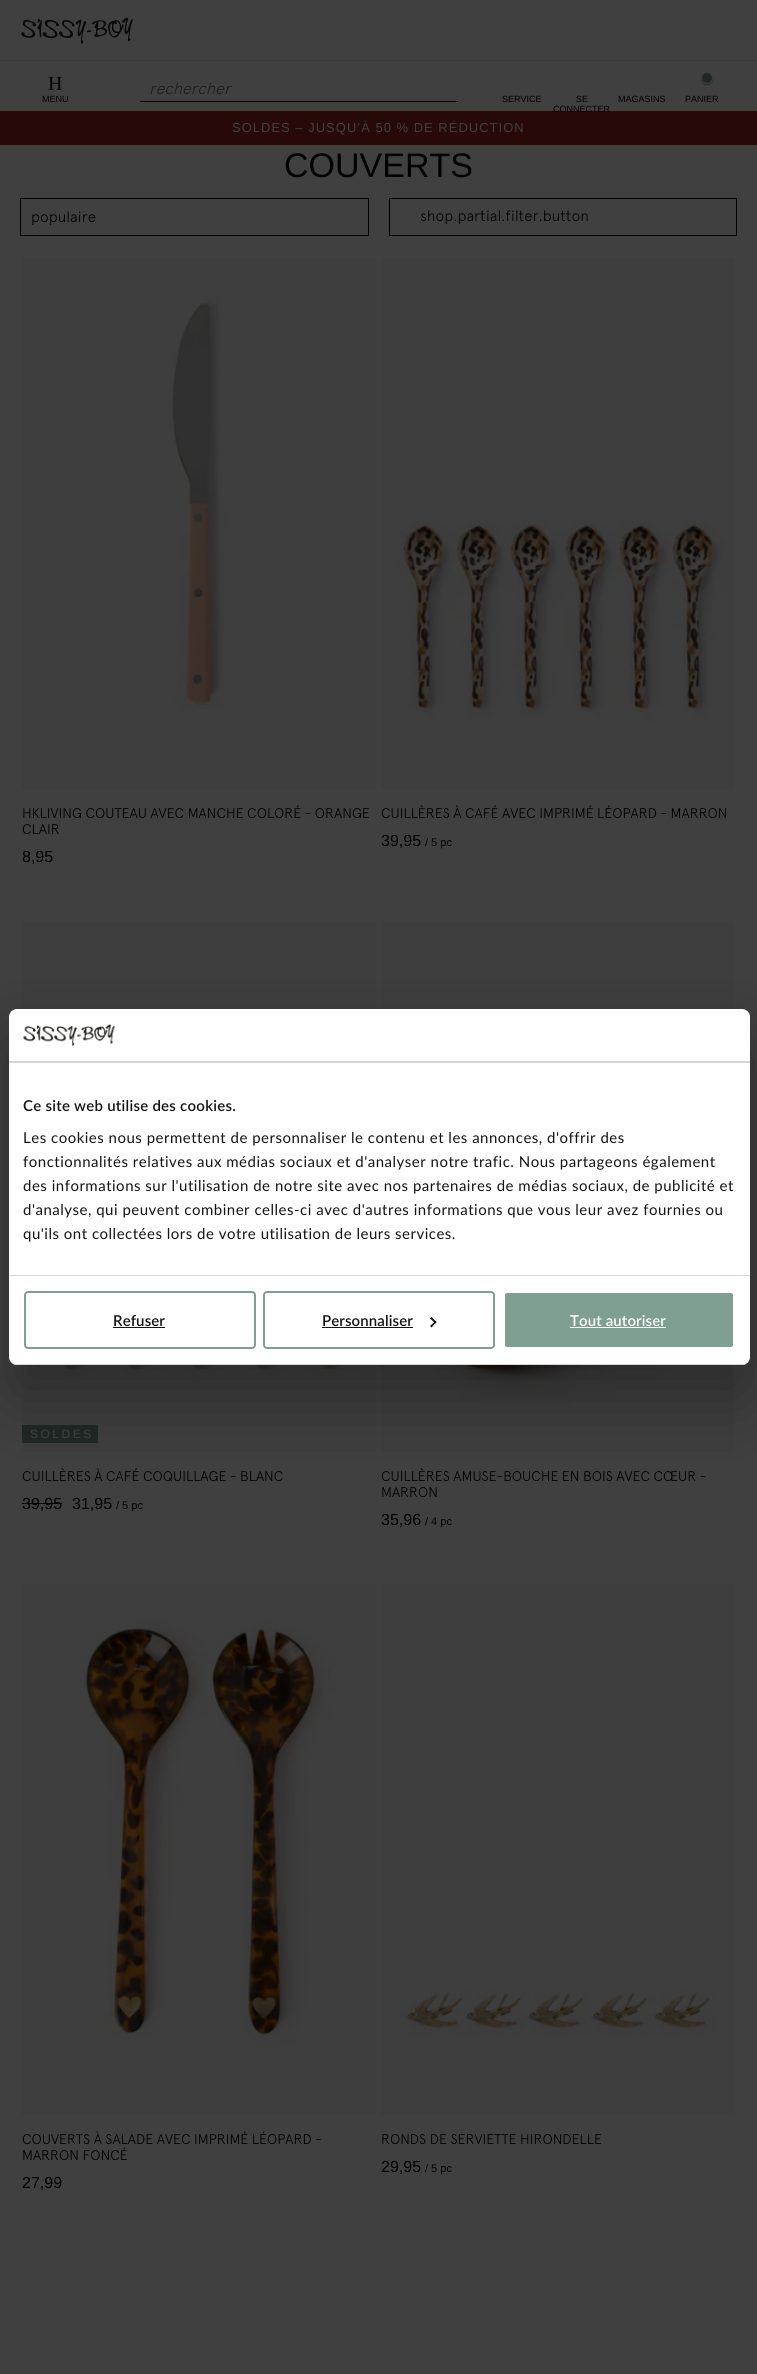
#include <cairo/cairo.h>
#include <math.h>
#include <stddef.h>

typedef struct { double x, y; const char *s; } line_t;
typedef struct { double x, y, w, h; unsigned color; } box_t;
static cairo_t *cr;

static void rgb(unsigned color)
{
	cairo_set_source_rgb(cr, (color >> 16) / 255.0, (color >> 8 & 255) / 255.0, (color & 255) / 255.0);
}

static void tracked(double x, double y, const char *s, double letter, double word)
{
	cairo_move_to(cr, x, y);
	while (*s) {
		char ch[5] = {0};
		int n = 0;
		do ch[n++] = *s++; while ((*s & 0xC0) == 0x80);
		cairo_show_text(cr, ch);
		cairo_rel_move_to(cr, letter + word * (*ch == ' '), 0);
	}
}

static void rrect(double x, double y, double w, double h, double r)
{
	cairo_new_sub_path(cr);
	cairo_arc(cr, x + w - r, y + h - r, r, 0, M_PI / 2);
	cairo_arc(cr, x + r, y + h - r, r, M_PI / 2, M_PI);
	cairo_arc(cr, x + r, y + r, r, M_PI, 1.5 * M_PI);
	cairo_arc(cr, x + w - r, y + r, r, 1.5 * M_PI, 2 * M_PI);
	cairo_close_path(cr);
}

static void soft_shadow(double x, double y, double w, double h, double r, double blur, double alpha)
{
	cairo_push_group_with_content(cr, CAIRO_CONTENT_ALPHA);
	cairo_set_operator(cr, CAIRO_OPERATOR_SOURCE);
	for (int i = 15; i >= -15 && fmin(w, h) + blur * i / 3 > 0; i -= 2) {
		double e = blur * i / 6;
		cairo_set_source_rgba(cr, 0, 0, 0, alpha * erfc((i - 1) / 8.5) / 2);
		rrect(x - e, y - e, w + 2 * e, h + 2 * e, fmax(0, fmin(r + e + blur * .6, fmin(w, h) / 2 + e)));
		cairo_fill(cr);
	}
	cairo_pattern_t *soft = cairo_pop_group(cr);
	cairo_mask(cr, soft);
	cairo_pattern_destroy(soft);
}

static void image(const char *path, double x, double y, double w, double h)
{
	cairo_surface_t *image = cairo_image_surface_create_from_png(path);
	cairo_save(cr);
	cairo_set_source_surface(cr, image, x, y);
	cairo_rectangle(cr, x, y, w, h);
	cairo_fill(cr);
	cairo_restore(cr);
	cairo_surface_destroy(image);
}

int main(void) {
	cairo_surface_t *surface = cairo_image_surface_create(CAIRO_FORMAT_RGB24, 757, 2374);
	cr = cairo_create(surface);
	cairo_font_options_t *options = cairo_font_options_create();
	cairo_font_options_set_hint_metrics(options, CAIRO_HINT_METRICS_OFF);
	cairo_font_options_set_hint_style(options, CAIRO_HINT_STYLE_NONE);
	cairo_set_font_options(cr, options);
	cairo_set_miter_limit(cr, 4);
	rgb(0x404040);
	cairo_paint(cr);
	rgb(0x000000);
	soft_shadow(701, 73, 12, 12, 6, 0.5, 0.35);
	rgb(0x202825);
	cairo_arc(cr, 707, 78, 5.5, 0, 2 * M_PI);
	cairo_fill_preserve(cr);
	rgb(0x404040);
	cairo_set_line_width(cr, 1);
	cairo_stroke(cr);
	rgb(0x3b3a39);
	cairo_rectangle(cr, 0, 60, 757, 1);
	cairo_fill(cr);
	image("img/1.png", 21, 17, 112, 27);
	rgb(0x000000);
	cairo_rectangle(cr, 140, 101, 318, 1);
	cairo_fill(cr);
	rgb(0x270908);
	cairo_rectangle(cr, 0, 111, 757, 34);
	cairo_fill(cr);
	cairo_rectangle(cr, 389.5, 198.5, 347, 37);
	rgb(0x000000);
	cairo_stroke(cr);
	{
		static const box_t items[] = {
			{20, 198, 349, 1, 0x000000},
			{20, 235, 318, 1, 0x000000},
			{20, 198, 1, 38, 0x000000},
			{368, 198, 1, 38, 0x000000},
			{338, 235, 31, 1, 0x000000},
		};
		for (size_t i = 0; i < sizeof items / sizeof *items; i++) {
			rgb(items[i].color);
			cairo_rectangle(cr, items[i].x, items[i].y, items[i].w, items[i].h);
			cairo_fill(cr);
		}
	}
	image("img/2.png", 22, 258, 355, 531);
	image("img/3.png", 381, 258, 354, 531);
	image("img/4.png", 22, 921, 355, 531);
	rgb(0x202825);
	cairo_rectangle(cr, 22, 1425, 76, 18);
	cairo_fill(cr);
	rgb(0x000000);
	cairo_rectangle(cr, 22, 1503, 40, 1);
	cairo_fill(cr);
	image("img/5.png", 381, 921, 354, 531);
	image("img/6.png", 22, 1584, 355, 531);
	image("img/7.png", 381, 1584, 354, 531);
	rgb(0x000000);
	soft_shadow(9, 1041, 741, 356, 8, 34, 0.3);
	rgb(0xffffff);
	rrect(9, 1009, 741, 356, 8);
	cairo_fill(cr);
	rgb(0xd6d6d6);
	cairo_rectangle(cr, 9, 1061, 741, 2);
	cairo_fill(cr);
	image("img/8.png", 23, 1024, 92, 22);
	cairo_rectangle(cr, 9, 1275, 741, 1);
	cairo_fill(cr);
	cairo_save(cr);
	rrect(9, 1009, 741, 356, 8);
	cairo_clip(cr);
	cairo_rectangle(cr, 9, 1364, 741, 1);
	cairo_fill(cr);
	cairo_restore(cr);
	rrect(25, 1292, 230, 56, 3);
	rgb(0x7e9f92);
	cairo_set_line_width(cr, 2);
	cairo_stroke(cr);
	rgb(0x141414);
	cairo_rectangle(cr, 113, 1327, 52, 1);
	cairo_fill(cr);
	rrect(264, 1292, 230, 56, 3);
	rgb(0x7e9f92);
	cairo_stroke(cr);
	rgb(0x141414);
	cairo_rectangle(cr, 322, 1327, 91, 1);
	cairo_fill(cr);
	cairo_new_path(cr);
	cairo_move_to(cr, 431.5, 1317);
	cairo_line_to(cr, 436.5, 1322);
	cairo_line_to(cr, 435.5, 1323.5);
	cairo_line_to(cr, 430, 1318.5);
	cairo_close_path(cr);
	cairo_fill(cr);
	cairo_new_path(cr);
	cairo_move_to(cr, 435.5, 1321);
	cairo_line_to(cr, 436.5, 1322);
	cairo_line_to(cr, 431.5, 1327.5);
	cairo_line_to(cr, 430, 1326);
	cairo_close_path(cr);
	cairo_fill(cr);
	rgb(0x7e9f92);
	rrect(504, 1292, 230, 56, 3);
	cairo_fill_preserve(cr);
	rgb(0xffffff);
	cairo_stroke(cr);
	cairo_rectangle(cr, 570, 1327, 96, 1);
	cairo_fill(cr);
	cairo_select_font_face(cr, "Liberation Serif", CAIRO_FONT_SLANT_NORMAL, CAIRO_FONT_WEIGHT_NORMAL);
	cairo_set_font_size(cr, 20);
	rgb(0x000000);
	cairo_move_to(cr, 48, 90);
	cairo_show_text(cr, "H");
	cairo_select_font_face(cr, "Liberation Sans", CAIRO_FONT_SLANT_NORMAL, CAIRO_FONT_WEIGHT_NORMAL);
	cairo_set_font_size(cr, 9);
	{
		static const line_t items[] = {
			{42, 102, "MENU"},
			{502, 102, "SERVICE"},
			{576, 102, "SE"},
			{553, 112, "CONNECTER"},
			{618, 102, "MAGASINS"},
			{685, 102, "PANIER"},
		};
		for (size_t i = 0; i < sizeof items / sizeof *items; i++) {
			cairo_move_to(cr, items[i].x, items[i].y);
			cairo_show_text(cr, items[i].s);
		}
	}
	cairo_select_font_face(cr, "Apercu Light", CAIRO_FONT_SLANT_ITALIC, CAIRO_FONT_WEIGHT_NORMAL);
	cairo_set_font_size(cr, 16);
	rgb(0x1f1e1c);
	cairo_move_to(cr, 149, 94);
	cairo_show_text(cr, "rechercher");
	cairo_select_font_face(cr, "Liberation Sans", CAIRO_FONT_SLANT_NORMAL, CAIRO_FONT_WEIGHT_NORMAL);
	cairo_set_font_size(cr, 13);
	rgb(0x404040);
	tracked(232, 132, "SOLDES – JUSQU’À 50 % DE RÉDUCTION", 1, 0);
	cairo_set_font_size(cr, 34);
	rgb(0x000000);
	cairo_move_to(cr, 284, 177);
	cairo_show_text(cr, "COUVERTS");
	cairo_select_font_face(cr, "Apercu Light", CAIRO_FONT_SLANT_NORMAL, CAIRO_FONT_WEIGHT_NORMAL);
	cairo_set_font_size(cr, 15);
	cairo_move_to(cr, 420, 221);
	cairo_show_text(cr, "shop.partial.filter.button");
	cairo_move_to(cr, 31, 222);
	cairo_show_text(cr, "populaire");
	cairo_set_font_size(cr, 14);
	cairo_move_to(cr, 22, 818);
	cairo_show_text(cr, "HKLIVING COUTEAU AVEC MANCHE COLORÉ - ORANGE");
	cairo_move_to(cr, 22, 834);
	cairo_show_text(cr, "CLAIR");
	cairo_select_font_face(cr, "Liberation Sans", CAIRO_FONT_SLANT_NORMAL, CAIRO_FONT_WEIGHT_NORMAL);
	cairo_set_font_size(cr, 16);
	cairo_move_to(cr, 22, 862);
	cairo_show_text(cr, "8,95");
	cairo_select_font_face(cr, "Apercu Light", CAIRO_FONT_SLANT_NORMAL, CAIRO_FONT_WEIGHT_NORMAL);
	cairo_set_font_size(cr, 14);
	cairo_move_to(cr, 381, 818);
	cairo_show_text(cr, "CUILLÈRES À CAFÉ AVEC IMPRIMÉ LÉOPARD - MARRON");
	cairo_select_font_face(cr, "Liberation Sans", CAIRO_FONT_SLANT_NORMAL, CAIRO_FONT_WEIGHT_NORMAL);
	cairo_set_font_size(cr, 16);
	cairo_move_to(cr, 381, 846);
	cairo_show_text(cr, "39,95");
	cairo_set_font_size(cr, 11);
	cairo_move_to(cr, 425, 846);
	cairo_show_text(cr, "/ 5 pc");
	cairo_set_font_size(cr, 12);
	rgb(0x404040);
	tracked(30, 1438, "SOLDES", 2.5, 0);
	cairo_select_font_face(cr, "Apercu Light", CAIRO_FONT_SLANT_NORMAL, CAIRO_FONT_WEIGHT_NORMAL);
	cairo_set_font_size(cr, 14);
	rgb(0x000000);
	cairo_move_to(cr, 22, 1481);
	cairo_show_text(cr, "CUILLÈRES À CAFÉ COQUILLAGE - BLANC");
	cairo_select_font_face(cr, "Liberation Sans", CAIRO_FONT_SLANT_NORMAL, CAIRO_FONT_WEIGHT_NORMAL);
	cairo_set_font_size(cr, 16);
	cairo_move_to(cr, 22, 1509);
	cairo_show_text(cr, "39,95");
	cairo_move_to(cr, 72, 1509);
	cairo_show_text(cr, "31,95");
	cairo_set_font_size(cr, 11);
	cairo_move_to(cr, 116, 1509);
	cairo_show_text(cr, "/ 5 pc");
	cairo_select_font_face(cr, "Apercu Light", CAIRO_FONT_SLANT_NORMAL, CAIRO_FONT_WEIGHT_NORMAL);
	cairo_set_font_size(cr, 14);
	cairo_move_to(cr, 381, 1481);
	cairo_show_text(cr, "CUILLÈRES AMUSE-BOUCHE EN BOIS AVEC CŒUR -");
	cairo_move_to(cr, 381, 1497);
	cairo_show_text(cr, "MARRON");
	cairo_select_font_face(cr, "Liberation Sans", CAIRO_FONT_SLANT_NORMAL, CAIRO_FONT_WEIGHT_NORMAL);
	cairo_set_font_size(cr, 16);
	cairo_move_to(cr, 381, 1525);
	cairo_show_text(cr, "35,96");
	cairo_set_font_size(cr, 11);
	cairo_move_to(cr, 425, 1525);
	cairo_show_text(cr, "/ 4 pc");
	cairo_select_font_face(cr, "Apercu Light", CAIRO_FONT_SLANT_NORMAL, CAIRO_FONT_WEIGHT_NORMAL);
	cairo_set_font_size(cr, 14);
	cairo_move_to(cr, 22, 2144);
	cairo_show_text(cr, "COUVERTS À SALADE AVEC IMPRIMÉ LÉOPARD -");
	cairo_move_to(cr, 22, 2160);
	cairo_show_text(cr, "MARRON FONCÉ");
	cairo_select_font_face(cr, "Liberation Sans", CAIRO_FONT_SLANT_NORMAL, CAIRO_FONT_WEIGHT_NORMAL);
	cairo_set_font_size(cr, 16);
	cairo_move_to(cr, 22, 2188);
	cairo_show_text(cr, "27,99");
	cairo_select_font_face(cr, "Apercu Light", CAIRO_FONT_SLANT_NORMAL, CAIRO_FONT_WEIGHT_NORMAL);
	cairo_set_font_size(cr, 14);
	cairo_move_to(cr, 381, 2144);
	cairo_show_text(cr, "RONDS DE SERVIETTE HIRONDELLE");
	cairo_select_font_face(cr, "Liberation Sans", CAIRO_FONT_SLANT_NORMAL, CAIRO_FONT_WEIGHT_NORMAL);
	cairo_set_font_size(cr, 16);
	cairo_move_to(cr, 381, 2172);
	cairo_show_text(cr, "29,95");
	cairo_set_font_size(cr, 11);
	cairo_move_to(cr, 425, 2172);
	cairo_show_text(cr, "/ 5 pc");
	cairo_select_font_face(cr, "Lato SemiBold", CAIRO_FONT_SLANT_NORMAL, CAIRO_FONT_WEIGHT_NORMAL);
	cairo_set_font_size(cr, 15);
	rgb(0x141414);
	tracked(23, 1111, "Ce site web utilise des cookies.", 0.25, 0);
	cairo_select_font_face(cr, "Lato", CAIRO_FONT_SLANT_NORMAL, CAIRO_FONT_WEIGHT_NORMAL);
	{
		static const line_t items[] = {
			{23, 1143, "Les cookies nous permettent de personnaliser le contenu et les annonces, d'offrir des"},
			{23, 1167, "fonctionnalités relatives aux médias sociaux et d'analyser notre trafic. Nous partageons également"},
			{23, 1191, "des informations sur l'utilisation de notre site avec nos partenaires de médias sociaux, de publicité et"},
			{23, 1215, "d'analyse, qui peuvent combiner celles-ci avec d'autres informations que vous leur avez fournies ou"},
			{23, 1239, "qu'ils ont collectées lors de votre utilisation de leurs services."},
		};
		for (size_t i = 0; i < sizeof items / sizeof *items; i++) {
			tracked(items[i].x, items[i].y, items[i].s, 0.5, 0);
		}
	}
	cairo_select_font_face(cr, "Lato SemiBold", CAIRO_FONT_SLANT_NORMAL, CAIRO_FONT_WEIGHT_NORMAL);
	tracked(113, 1326, "Refuser", 0.1, 0);
	tracked(322, 1326, "Personnaliser", 0.1, 0);
	rgb(0xffffff);
	tracked(570, 1326, "Tout autoriser", 0.1, 0);
	cairo_surface_write_to_png(surface, "page.png");
	cairo_font_options_destroy(options);
	cairo_destroy(cr);
	cairo_surface_destroy(surface);
	return 0;
}
